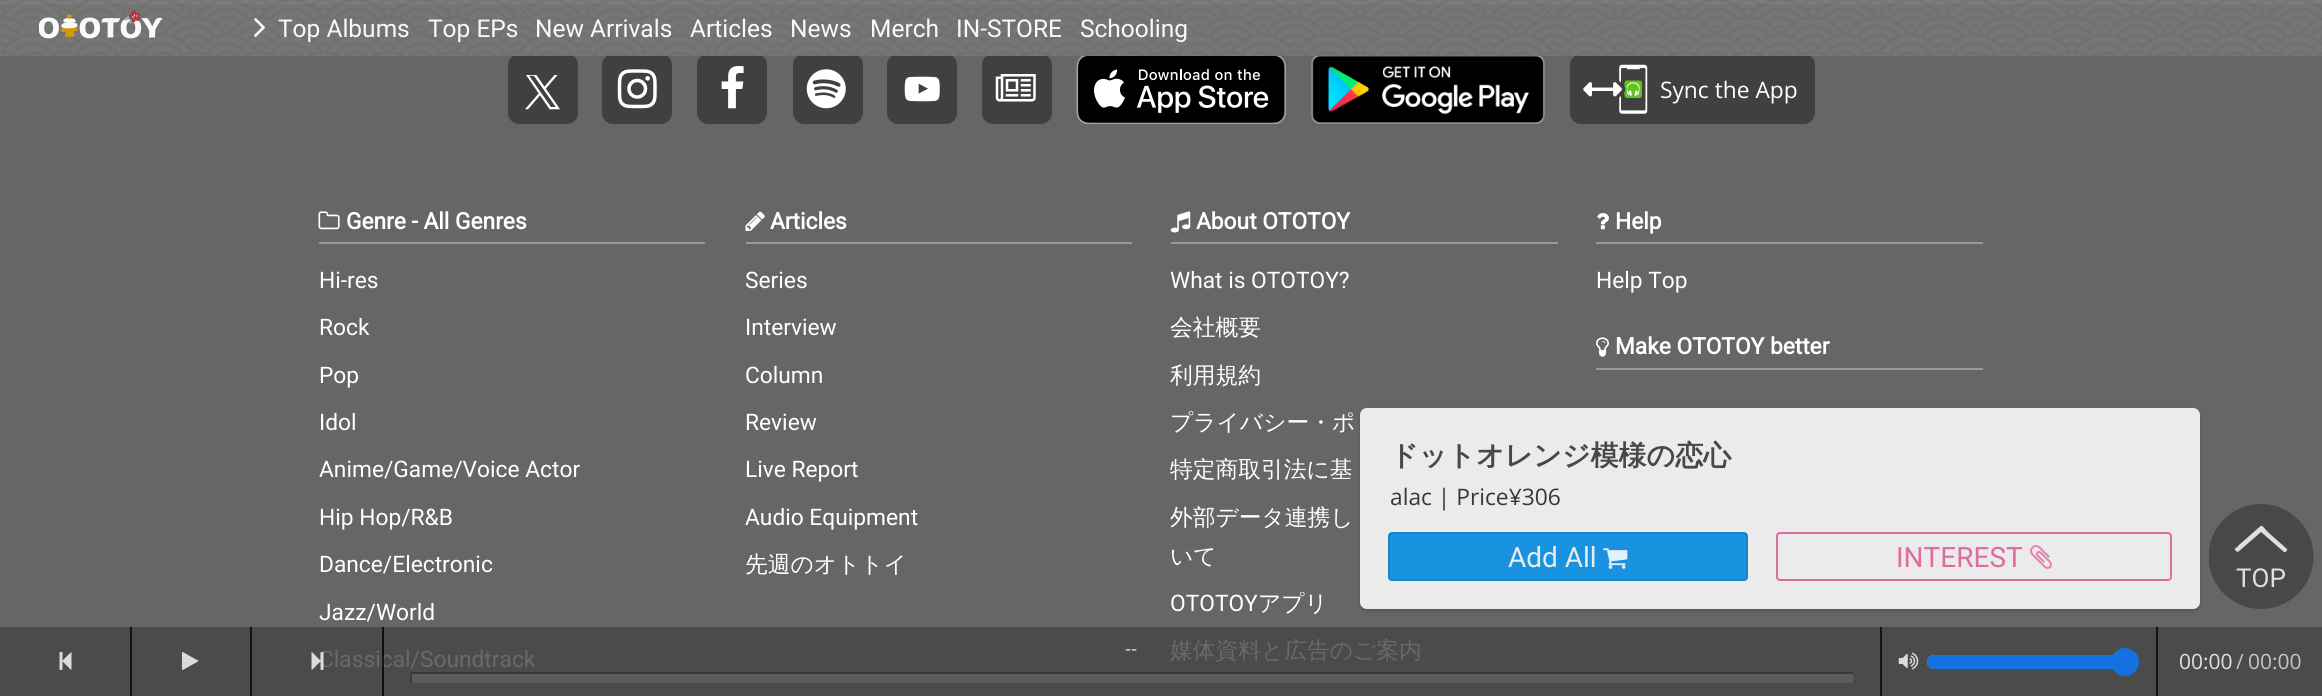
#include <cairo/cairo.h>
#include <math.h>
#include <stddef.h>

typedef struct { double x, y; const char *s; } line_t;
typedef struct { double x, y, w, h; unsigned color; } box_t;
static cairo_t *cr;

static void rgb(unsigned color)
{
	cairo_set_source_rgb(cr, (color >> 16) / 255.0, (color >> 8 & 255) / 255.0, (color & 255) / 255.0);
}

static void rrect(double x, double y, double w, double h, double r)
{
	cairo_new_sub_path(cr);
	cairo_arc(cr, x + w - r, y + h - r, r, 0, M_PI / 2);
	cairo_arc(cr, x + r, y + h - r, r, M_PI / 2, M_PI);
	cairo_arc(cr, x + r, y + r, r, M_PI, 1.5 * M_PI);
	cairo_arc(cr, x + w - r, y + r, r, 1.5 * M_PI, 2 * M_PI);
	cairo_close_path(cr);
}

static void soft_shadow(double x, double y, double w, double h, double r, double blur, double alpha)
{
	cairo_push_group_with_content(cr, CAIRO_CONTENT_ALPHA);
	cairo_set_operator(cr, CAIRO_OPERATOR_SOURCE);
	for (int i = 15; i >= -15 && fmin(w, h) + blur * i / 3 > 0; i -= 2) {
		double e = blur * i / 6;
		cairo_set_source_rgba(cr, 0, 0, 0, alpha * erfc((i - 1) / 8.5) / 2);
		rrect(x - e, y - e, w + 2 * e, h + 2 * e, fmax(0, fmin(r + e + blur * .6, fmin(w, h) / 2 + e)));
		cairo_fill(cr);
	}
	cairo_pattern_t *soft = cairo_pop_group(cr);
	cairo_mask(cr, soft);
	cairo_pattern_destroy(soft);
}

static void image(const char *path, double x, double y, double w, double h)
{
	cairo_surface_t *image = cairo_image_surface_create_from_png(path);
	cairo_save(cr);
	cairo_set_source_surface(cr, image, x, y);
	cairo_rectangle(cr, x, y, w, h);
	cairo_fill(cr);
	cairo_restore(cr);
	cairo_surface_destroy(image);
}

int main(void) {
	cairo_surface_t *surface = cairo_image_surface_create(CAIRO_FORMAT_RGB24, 2322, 696);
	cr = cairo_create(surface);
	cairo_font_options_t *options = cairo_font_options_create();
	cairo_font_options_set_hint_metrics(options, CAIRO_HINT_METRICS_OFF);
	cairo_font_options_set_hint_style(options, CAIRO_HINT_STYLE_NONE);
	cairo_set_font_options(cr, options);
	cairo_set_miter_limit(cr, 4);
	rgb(0xffffff);
	cairo_paint(cr);
	rgb(0x666666);
	cairo_rectangle(cr, 0, 4, 2322, 623);
	cairo_fill(cr);
	rgb(0x404040);
	rrect(508, 54, 70, 70, 11);
	cairo_fill(cr);
	rrect(602, 54, 70, 70, 11);
	cairo_fill(cr);
	rrect(697, 54, 70, 70, 11);
	cairo_fill(cr);
	rrect(793, 54, 70, 70, 11);
	cairo_fill(cr);
	rrect(887, 54, 70, 70, 11);
	cairo_fill(cr);
	rrect(982, 54, 70, 70, 11);
	cairo_fill(cr);
	image("img/10.png", 1076, 54, 210, 70);
	image("img/11.png", 1311, 55, 234, 69);
	rrect(1570, 54, 245, 70, 11);
	cairo_fill(cr);
	image("img/1.png", 0, 0, 2322, 56);
	image("img/2.png", 39, 10, 124, 29);
	image("img/3.png", 254, 18, 12, 19);
	rgb(0x4b4b4b);
	cairo_rectangle(cr, 0, 627, 2322, 69);
	cairo_fill(cr);
	image("img/4.png", 525, 75, 35, 35);
	image("img/5.png", 617, 69, 40, 40);
	image("img/6.png", 721, 66, 23, 43);
	image("img/7.png", 806, 69, 40, 40);
	image("img/8.png", 904, 76, 36, 26);
	image("img/9.png", 995, 74, 41, 28);
	image("img/12.png", 1583, 64, 65, 50);
	rgb(0x999999);
	cairo_rectangle(cr, 319, 242, 386, 2);
	cairo_fill(cr);
	image("img/13.png", 318, 211, 22, 19);
	cairo_rectangle(cr, 746, 242, 386, 2);
	cairo_fill(cr);
	image("img/14.png", 745, 211, 20, 20);
	cairo_rectangle(cr, 1171, 242, 387, 2);
	cairo_fill(cr);
	image("img/15.png", 1170, 211, 21, 22);
	cairo_rectangle(cr, 1596, 242, 387, 2);
	cairo_fill(cr);
	image("img/16.png", 1597, 213, 12, 17);
	cairo_rectangle(cr, 1596, 368, 387, 2);
	cairo_fill(cr);
	image("img/17.png", 1596, 337, 13, 20);
	cairo_save(cr);
	cairo_set_fill_rule(cr, CAIRO_FILL_RULE_EVEN_ODD);
	cairo_new_path(cr);
	cairo_move_to(cr, 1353, 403);
	cairo_line_to(cr, 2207, 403);
	cairo_line_to(cr, 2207, 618);
	cairo_line_to(cr, 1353, 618);
	cairo_close_path(cr);
	cairo_move_to(cr, 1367, 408);
	cairo_line_to(cr, 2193, 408);
	cairo_curve_to(cr, 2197, 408, 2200, 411, 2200, 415);
	cairo_line_to(cr, 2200, 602);
	cairo_curve_to(cr, 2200, 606, 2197, 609, 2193, 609);
	cairo_line_to(cr, 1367, 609);
	cairo_curve_to(cr, 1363, 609, 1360, 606, 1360, 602);
	cairo_line_to(cr, 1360, 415);
	cairo_curve_to(cr, 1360, 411, 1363, 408, 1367, 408);
	cairo_close_path(cr);
	cairo_clip(cr);
	rgb(0x000000);
	soft_shadow(1360, 410, 840, 201, 7, 2, 0.17);
	cairo_restore(cr);
	cairo_set_source_rgba(cr, 1, 1, 1, 0.87);
	rrect(1360, 408, 840, 201, 7);
	cairo_fill(cr);
	rgb(0x1993df);
	rrect(1389, 533, 358, 47, 3);
	cairo_fill_preserve(cr);
	rgb(0x1885c9);
	cairo_stroke(cr);
	image("img/18.png", 1603, 548, 25, 21);
	rrect(1777, 533, 394, 47, 3);
	rgb(0xdd6ca0);
	cairo_stroke(cr);
	image("img/19.png", 2030, 545, 22, 24);
	cairo_save(cr);
	cairo_rectangle(cr, 2209, 504, 105, 105);
	cairo_clip(cr);
	rgb(0x484848);
	cairo_arc(cr, 2261, 556.5, 52.5, 0, 2 * M_PI);
	cairo_fill(cr);
	cairo_restore(cr);
	rgb(0xe0e0e0);
	cairo_new_path(cr);
	cairo_move_to(cr, 2284, 552);
	cairo_line_to(cr, 2261, 532);
	cairo_line_to(cr, 2238, 552);
	cairo_line_to(cr, 2236, 551);
	cairo_curve_to(cr, 2233, 548, 2236, 549, 2239, 545);
	cairo_line_to(cr, 2256, 530);
	cairo_curve_to(cr, 2264, 523, 2260, 525, 2270, 534);
	cairo_line_to(cr, 2287, 549);
	cairo_curve_to(cr, 2288, 550, 2285, 553, 2284, 552);
	cairo_close_path(cr);
	cairo_fill(cr);
	rgb(0x141414);
	cairo_rectangle(cr, 130, 627, 2, 69);
	cairo_fill(cr);
	image("img/20.png", 59, 652, 13, 18);
	cairo_rectangle(cr, 250, 627, 2, 69);
	cairo_fill(cr);
	image("img/21.png", 182, 652, 17, 18);
	{
		static const box_t items[] = {
			{412, 674, 1441, 9, 0x5c5c5c},
			{410, 672, 1443, 2, 0x3a3a3a},
			{410, 672, 2, 11, 0x3a3a3a},
			{1880, 627, 2, 69, 0x141414},
		};
		for (size_t i = 0; i < sizeof items / sizeof *items; i++) {
			rgb(items[i].color);
			cairo_rectangle(cr, items[i].x, items[i].y, items[i].w, items[i].h);
			cairo_fill(cr);
		}
	}
	image("img/23.png", 1898, 652, 21, 18);
	rrect(1928, 656, 208, 12, 6);
	rgb(0xa3a3a3);
	cairo_stroke(cr);
	rgb(0x1472e0);
	cairo_new_path(cr);
	cairo_move_to(cr, 1934, 655);
	cairo_line_to(cr, 2125, 655);
	cairo_line_to(cr, 2125, 669);
	cairo_line_to(cr, 1934, 669);
	cairo_curve_to(cr, 1930, 669, 1927, 666, 1927, 662);
	cairo_curve_to(cr, 1927, 658, 1930, 655, 1934, 655);
	cairo_close_path(cr);
	cairo_fill(cr);
	cairo_arc(cr, 2125, 662, 14, 0, 2 * M_PI);
	cairo_fill(cr);
	rgb(0x141414);
	cairo_rectangle(cr, 2156, 627, 2, 69);
	cairo_fill(cr);
	cairo_select_font_face(cr, "Roboto", CAIRO_FONT_SLANT_NORMAL, CAIRO_FONT_WEIGHT_NORMAL);
	cairo_set_font_size(cr, 24.5);
	rgb(0xf9f9f9);
	{
		static const line_t items[] = {
			{278, 37, "Top Albums"},
			{428, 37, "Top EPs"},
			{535, 37, "New Arrivals"},
			{690, 37, "Articles"},
			{790, 37, "News"},
			{870, 37, "Merch"},
			{956, 37, "IN-STORE"},
			{1080, 37, "Schooling"},
		};
		for (size_t i = 0; i < sizeof items / sizeof *items; i++) {
			cairo_move_to(cr, items[i].x, items[i].y);
			cairo_show_text(cr, items[i].s);
		}
	}
	cairo_select_font_face(cr, "Open Sans", CAIRO_FONT_SLANT_NORMAL, CAIRO_FONT_WEIGHT_NORMAL);
	cairo_set_font_size(cr, 22.75);
	rgb(0xffffff);
	cairo_move_to(cr, 1660, 98);
	cairo_show_text(cr, "Sync the App");
	cairo_select_font_face(cr, "Roboto", CAIRO_FONT_SLANT_NORMAL, CAIRO_FONT_WEIGHT_BOLD);
	cairo_move_to(cr, 346, 229);
	cairo_show_text(cr, "Genre - All Genres");
	cairo_select_font_face(cr, "Roboto", CAIRO_FONT_SLANT_NORMAL, CAIRO_FONT_WEIGHT_NORMAL);
	{
		static const line_t items[] = {
			{319, 288, "Hi-res"},
			{319, 335, "Rock"},
			{319, 383, "Pop"},
			{319, 430, "Idol"},
			{319, 477, "Anime/Game/Voice Actor"},
			{319, 525, "Hip Hop/R&B"},
			{319, 572, "Dance/Electronic"},
			{319, 620, "Jazz/World"},
		};
		for (size_t i = 0; i < sizeof items / sizeof *items; i++) {
			cairo_move_to(cr, items[i].x, items[i].y);
			cairo_show_text(cr, items[i].s);
		}
	}
	rgb(0x696969);
	cairo_move_to(cr, 319, 667);
	cairo_show_text(cr, "Classical/Soundtrack");
	cairo_select_font_face(cr, "Roboto", CAIRO_FONT_SLANT_NORMAL, CAIRO_FONT_WEIGHT_BOLD);
	rgb(0xffffff);
	cairo_move_to(cr, 770, 229);
	cairo_show_text(cr, "Articles");
	cairo_select_font_face(cr, "Roboto", CAIRO_FONT_SLANT_NORMAL, CAIRO_FONT_WEIGHT_NORMAL);
	{
		static const line_t items[] = {
			{745, 288, "Series"},
			{745, 335, "Interview"},
			{745, 383, "Column"},
			{745, 430, "Review"},
			{745, 477, "Live Report"},
			{745, 525, "Audio Equipment"},
		};
		for (size_t i = 0; i < sizeof items / sizeof *items; i++) {
			cairo_move_to(cr, items[i].x, items[i].y);
			cairo_show_text(cr, items[i].s);
		}
	}
	cairo_select_font_face(cr, "WenQuanYi Zen Hei Medium", CAIRO_FONT_SLANT_NORMAL, CAIRO_FONT_WEIGHT_NORMAL);
	cairo_move_to(cr, 745, 572);
	cairo_show_text(cr, "先週のオトトイ");
	cairo_select_font_face(cr, "Roboto", CAIRO_FONT_SLANT_NORMAL, CAIRO_FONT_WEIGHT_BOLD);
	cairo_move_to(cr, 1196, 229);
	cairo_show_text(cr, "About OTOTOY");
	cairo_select_font_face(cr, "Roboto", CAIRO_FONT_SLANT_NORMAL, CAIRO_FONT_WEIGHT_NORMAL);
	cairo_move_to(cr, 1170, 288);
	cairo_show_text(cr, "What is OTOTOY?");
	cairo_select_font_face(cr, "WenQuanYi Zen Hei Medium", CAIRO_FONT_SLANT_NORMAL, CAIRO_FONT_WEIGHT_NORMAL);
	{
		static const line_t items[] = {
			{1170, 335, "会社概要"},
			{1170, 383, "利用規約"},
			{1170, 430, "プライバシー・ポ"},
			{1170, 477, "特定商取引法に基"},
			{1170, 525, "外部データ連携し"},
			{1170, 564, "いて"},
		};
		for (size_t i = 0; i < sizeof items / sizeof *items; i++) {
			cairo_move_to(cr, items[i].x, items[i].y);
			cairo_show_text(cr, items[i].s);
		}
	}
	cairo_select_font_face(cr, "Roboto", CAIRO_FONT_SLANT_NORMAL, CAIRO_FONT_WEIGHT_NORMAL);
	cairo_move_to(cr, 1170, 611);
	cairo_show_text(cr, "OTOTOY");
	cairo_select_font_face(cr, "WenQuanYi Zen Hei Medium", CAIRO_FONT_SLANT_NORMAL, CAIRO_FONT_WEIGHT_NORMAL);
	cairo_move_to(cr, 1258, 611);
	cairo_show_text(cr, "アプリ");
	rgb(0x696969);
	cairo_move_to(cr, 1170, 658);
	cairo_show_text(cr, "媒体資料と広告のご案内");
	cairo_select_font_face(cr, "Roboto", CAIRO_FONT_SLANT_NORMAL, CAIRO_FONT_WEIGHT_BOLD);
	rgb(0xffffff);
	cairo_move_to(cr, 1615, 229);
	cairo_show_text(cr, "Help");
	cairo_select_font_face(cr, "Roboto", CAIRO_FONT_SLANT_NORMAL, CAIRO_FONT_WEIGHT_NORMAL);
	cairo_move_to(cr, 1596, 288);
	cairo_show_text(cr, "Help Top");
	cairo_select_font_face(cr, "Roboto", CAIRO_FONT_SLANT_NORMAL, CAIRO_FONT_WEIGHT_BOLD);
	cairo_move_to(cr, 1615, 354);
	cairo_show_text(cr, "Make OTOTOY better");
	cairo_select_font_face(cr, "WenQuanYi Zen Hei", CAIRO_FONT_SLANT_NORMAL, CAIRO_FONT_WEIGHT_BOLD);
	cairo_set_font_size(cr, 28);
	rgb(0x484848);
	cairo_move_to(cr, 1390, 465);
	cairo_show_text(cr, "ドットオレンジ模様の恋心");
	cairo_select_font_face(cr, "Open Sans", CAIRO_FONT_SLANT_NORMAL, CAIRO_FONT_WEIGHT_NORMAL);
	cairo_set_font_size(cr, 22.75);
	rgb(0x373737);
	cairo_move_to(cr, 1390, 505);
	cairo_show_text(cr, "alac | Price¥306");
	cairo_select_font_face(cr, "Roboto", CAIRO_FONT_SLANT_NORMAL, CAIRO_FONT_WEIGHT_NORMAL);
	cairo_set_font_size(cr, 28);
	rgb(0xebebeb);
	cairo_move_to(cr, 1508, 567);
	cairo_show_text(cr, "Add All");
	rgb(0xdd6ca0);
	cairo_move_to(cr, 1896, 567);
	cairo_show_text(cr, "INTEREST");
	cairo_set_font_size(cr, 26);
	rgb(0xe0e0e0);
	cairo_move_to(cr, 2236, 587);
	cairo_show_text(cr, "TOP");
	cairo_set_source_rgba(cr, 0, 0, 0, 0.8);
	cairo_rectangle(cr, 382, 627, 2, 69);
	cairo_fill(cr);
	image("img/22.png", 311, 652, 13, 18);
	cairo_select_font_face(cr, "Open Sans", CAIRO_FONT_SLANT_NORMAL, CAIRO_FONT_WEIGHT_NORMAL);
	cairo_set_font_size(cr, 19);
	rgb(0xe0e0e0);
	cairo_move_to(cr, 1125, 655);
	cairo_show_text(cr, "--");
	cairo_set_font_size(cr, 21);
	cairo_move_to(cr, 2179, 669);
	cairo_show_text(cr, "00:00");
	rgb(0xc5c5c5);
	cairo_move_to(cr, 2236, 669);
	cairo_show_text(cr, "/");
	cairo_move_to(cr, 2248, 669);
	cairo_show_text(cr, "00:00");
	cairo_surface_write_to_png(surface, "page.png");
	cairo_font_options_destroy(options);
	cairo_destroy(cr);
	cairo_surface_destroy(surface);
	return 0;
}
